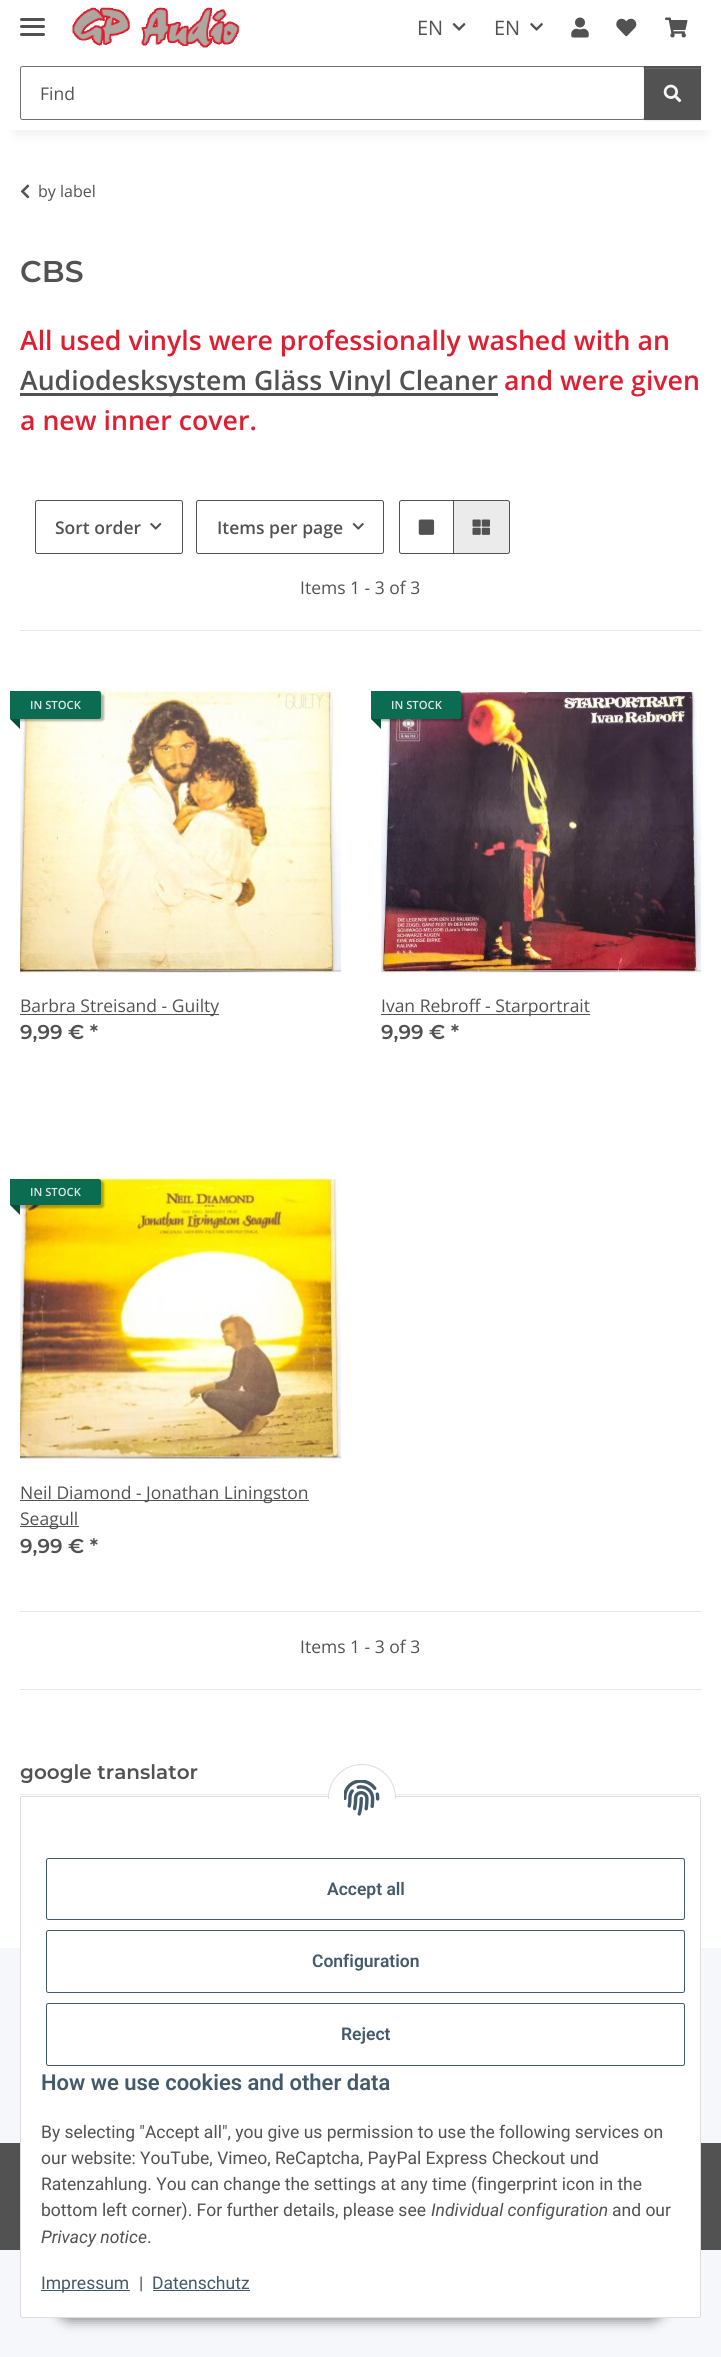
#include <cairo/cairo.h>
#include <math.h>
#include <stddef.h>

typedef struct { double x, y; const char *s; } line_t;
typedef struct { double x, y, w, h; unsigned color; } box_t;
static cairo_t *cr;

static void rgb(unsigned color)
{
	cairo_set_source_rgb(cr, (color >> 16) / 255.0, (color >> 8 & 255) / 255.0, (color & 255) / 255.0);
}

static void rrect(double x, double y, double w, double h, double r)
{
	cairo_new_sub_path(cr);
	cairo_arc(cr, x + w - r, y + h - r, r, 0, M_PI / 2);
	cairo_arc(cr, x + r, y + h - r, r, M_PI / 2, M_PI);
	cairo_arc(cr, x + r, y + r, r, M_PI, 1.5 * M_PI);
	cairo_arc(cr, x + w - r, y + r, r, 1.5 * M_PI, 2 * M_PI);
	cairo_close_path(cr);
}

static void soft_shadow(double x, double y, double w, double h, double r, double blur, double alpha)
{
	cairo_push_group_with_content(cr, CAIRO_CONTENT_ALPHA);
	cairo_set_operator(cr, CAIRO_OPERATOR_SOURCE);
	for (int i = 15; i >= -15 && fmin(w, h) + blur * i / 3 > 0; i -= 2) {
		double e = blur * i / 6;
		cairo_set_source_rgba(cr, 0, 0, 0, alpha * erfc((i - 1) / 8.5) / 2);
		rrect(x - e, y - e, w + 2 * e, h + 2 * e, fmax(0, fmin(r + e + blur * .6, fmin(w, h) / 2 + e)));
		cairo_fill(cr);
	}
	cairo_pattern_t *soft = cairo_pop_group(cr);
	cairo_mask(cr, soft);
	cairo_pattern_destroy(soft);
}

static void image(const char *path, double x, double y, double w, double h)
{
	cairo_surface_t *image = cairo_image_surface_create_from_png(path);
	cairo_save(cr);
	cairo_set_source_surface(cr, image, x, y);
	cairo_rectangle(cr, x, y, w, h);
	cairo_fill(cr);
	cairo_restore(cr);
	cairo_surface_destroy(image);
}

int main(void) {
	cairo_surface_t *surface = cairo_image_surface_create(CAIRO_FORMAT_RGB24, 721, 2357);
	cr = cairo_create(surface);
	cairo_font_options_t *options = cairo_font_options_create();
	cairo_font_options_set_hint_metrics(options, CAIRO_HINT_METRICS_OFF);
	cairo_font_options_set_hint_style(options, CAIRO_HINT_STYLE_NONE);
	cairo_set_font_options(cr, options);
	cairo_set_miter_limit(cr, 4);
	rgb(0xf5f7fa);
	cairo_paint(cr);
	rgb(0xffffff);
	cairo_rectangle(cr, 0, 130, 721, 1818);
	cairo_fill(cr);
	rgb(0x000000);
	soft_shadow(15, 35, 691, 100, 0, 5.5, 0.06);
	rgb(0xffffff);
	cairo_rectangle(cr, 0, 0, 721, 130);
	cairo_fill(cr);
	rgb(0x525252);
	rrect(20, 25, 25, 3, 1.5);
	cairo_fill(cr);
	rrect(20, 18, 25, 3, 1.5);
	cairo_fill(cr);
	rrect(20, 33, 25, 3, 1.5);
	cairo_fill(cr);
	image("img/1.png", 72, 7, 168, 41);
	image("img/2.png", 452, 23, 14, 8);
	image("img/3.png", 530, 23, 13, 8);
	image("img/4.png", 571, 17, 18, 21);
	image("img/5.png", 616, 18, 21, 19);
	image("img/6.png", 665, 17, 23, 21);
	rrect(20.5, 66.5, 624, 53, 2);
	rgb(0x707070);
	cairo_set_line_width(cr, 1);
	cairo_stroke(cr);
	rgb(0x000000);
	soft_shadow(644, 68, 57, 53, 0, 0.5, 0.07);
	rgb(0x525252);
	cairo_rectangle(cr, 644, 66, 57, 54);
	cairo_fill(cr);
	rgb(0x6c6c6c);
	cairo_rectangle(cr, 645, 68, 55, 1);
	cairo_fill(cr);
	image("img/7.png", 663, 84, 19, 19);
	image("img/8.png", 20, 184, 10, 15);
	rgb(0x525252);
	cairo_rectangle(cr, 20, 393, 478, 3);
	cairo_fill(cr);
	rrect(35.5, 500.5, 147, 53, 2);
	cairo_stroke(cr);
	image("img/9.png", 150, 523, 12, 7);
	rrect(196.5, 500.5, 187, 53, 2);
	cairo_stroke(cr);
	image("img/10.png", 352, 523, 12, 7);
	cairo_new_path(cr);
	cairo_move_to(cr, 401.5, 500.5);
	cairo_line_to(cr, 453.5, 500.5);
	cairo_line_to(cr, 453.5, 553.5);
	cairo_line_to(cr, 401.5, 553.5);
	cairo_curve_to(cr, 400.5, 553.5, 399.5, 552.5, 399.5, 551.5);
	cairo_line_to(cr, 399.5, 502.5);
	cairo_curve_to(cr, 399.5, 501.5, 400.5, 500.5, 401.5, 500.5);
	cairo_close_path(cr);
	cairo_stroke(cr);
	image("img/11.png", 418, 519, 17, 16);
	rgb(0xebebeb);
	cairo_new_path(cr);
	cairo_move_to(cr, 453.5, 500.5);
	cairo_line_to(cr, 507.5, 500.5);
	cairo_curve_to(cr, 508.5, 500.5, 509.5, 501.5, 509.5, 502.5);
	cairo_line_to(cr, 509.5, 551.5);
	cairo_curve_to(cr, 509.5, 552.5, 508.5, 553.5, 507.5, 553.5);
	cairo_line_to(cr, 453.5, 553.5);
	cairo_close_path(cr);
	cairo_fill_preserve(cr);
	rgb(0x525252);
	cairo_stroke(cr);
	image("img/12.png", 472, 519, 18, 16);
	rgb(0xe6e6e6);
	cairo_rectangle(cr, 20, 630, 681, 1);
	cairo_fill(cr);
	image("img/13.png", 20, 687, 321, 289);
	rgb(0x000000);
	soft_shadow(13, 694, 91, 27, 2.5, 1, 0.3);
	rgb(0x0b6c51);
	cairo_new_path(cr);
	cairo_move_to(cr, 10, 691);
	cairo_line_to(cr, 98.5, 691);
	cairo_curve_to(cr, 100, 691, 101, 692, 101, 693.5);
	cairo_line_to(cr, 101, 716.5);
	cairo_curve_to(cr, 101, 718, 100, 719, 98.5, 719);
	cairo_line_to(cr, 10, 719);
	cairo_close_path(cr);
	cairo_fill(cr);
	rgb(0x08503c);
	cairo_new_path(cr);
	cairo_move_to(cr, 20, 719);
	cairo_line_to(cr, 20, 729);
	cairo_line_to(cr, 10, 719);
	cairo_close_path(cr);
	cairo_fill(cr);
	rgb(0x525252);
	cairo_rectangle(cr, 20, 1014, 199, 1);
	cairo_fill(cr);
	image("img/14.png", 381, 687, 320, 290);
	rgb(0x000000);
	soft_shadow(374, 694, 90, 27, 2.5, 1, 0.3);
	rgb(0x0b6c51);
	cairo_new_path(cr);
	cairo_move_to(cr, 371, 691);
	cairo_line_to(cr, 458.5, 691);
	cairo_curve_to(cr, 460, 691, 461, 692, 461, 693.5);
	cairo_line_to(cr, 461, 716.5);
	cairo_curve_to(cr, 461, 718, 460, 719, 458.5, 719);
	cairo_line_to(cr, 371, 719);
	cairo_close_path(cr);
	cairo_fill(cr);
	rgb(0x08503c);
	cairo_new_path(cr);
	cairo_move_to(cr, 381, 719);
	cairo_line_to(cr, 381, 729);
	cairo_line_to(cr, 371, 719);
	cairo_close_path(cr);
	cairo_fill(cr);
	rgb(0x525252);
	cairo_rectangle(cr, 381, 1014, 209, 1);
	cairo_fill(cr);
	image("img/15.png", 20, 1174, 321, 289);
	rgb(0x000000);
	soft_shadow(13, 1181, 91, 27, 2.5, 1, 0.3);
	rgb(0x0b6c51);
	cairo_new_path(cr);
	cairo_move_to(cr, 10, 1179);
	cairo_line_to(cr, 98.5, 1179);
	cairo_curve_to(cr, 100, 1179, 101, 1180, 101, 1181.5);
	cairo_line_to(cr, 101, 1202.5);
	cairo_curve_to(cr, 101, 1204, 100, 1205, 98.5, 1205);
	cairo_line_to(cr, 10, 1205);
	cairo_close_path(cr);
	cairo_fill(cr);
	rgb(0x08503c);
	cairo_new_path(cr);
	cairo_move_to(cr, 20, 1205);
	cairo_line_to(cr, 20, 1215);
	cairo_line_to(cr, 10, 1205);
	cairo_close_path(cr);
	cairo_fill(cr);
	{
		static const box_t items[] = {
			{20, 1500, 289, 1, 0x525252},
			{20, 1526, 59, 1, 0x525252},
			{20, 1611, 681, 1, 0xe6e6e6},
			{20, 1689, 681, 1, 0xe6e6e6},
			{20, 1794, 681, 1, 0xebebeb},
		};
		for (size_t i = 0; i < sizeof items / sizeof *items; i++) {
			rgb(items[i].color);
			cairo_rectangle(cr, items[i].x, items[i].y, items[i].w, items[i].h);
			cairo_fill(cr);
		}
	}
	rgb(0x000000);
	soft_shadow(55, 2281, 611, 40, 20, 6, 0.45);
	rgb(0x525252);
	cairo_rectangle(cr, 0, 2143, 721, 107);
	cairo_fill(cr);
	rgb(0xffffff);
	rrect(20.5, 1796.5, 680, 521, 2);
	cairo_fill_preserve(cr);
	rgb(0xdddddd);
	cairo_stroke(cr);
	rgb(0xffffff);
	rrect(328.5, 1764.5, 67, 68, 33.5);
	cairo_fill_preserve(cr);
	rgb(0xdddddd);
	cairo_stroke(cr);
	rgb(0xffffff);
	cairo_rectangle(cr, 328, 1799, 68, 34);
	cairo_fill(cr);
	image("img/16.png", 344, 1780, 36, 36);
	rrect(46.5, 1858.5, 638, 61, 2);
	rgb(0x435a6b);
	cairo_stroke(cr);
	rrect(46.5, 1930.5, 638, 62, 2);
	cairo_stroke(cr);
	rrect(46.5, 2003.5, 638, 62, 2);
	cairo_stroke(cr);
	cairo_rectangle(cr, 41, 2290, 89, 1);
	cairo_fill(cr);
	cairo_rectangle(cr, 153, 2290, 97, 1);
	cairo_fill(cr);
	cairo_select_font_face(cr, "Open Sans", CAIRO_FONT_SLANT_NORMAL, CAIRO_FONT_WEIGHT_NORMAL);
	cairo_set_font_size(cr, 20);
	rgb(0x525252);
	cairo_move_to(cr, 417, 35);
	cairo_show_text(cr, "EN");
	cairo_move_to(cr, 494, 35);
	cairo_show_text(cr, "EN");
	cairo_set_font_size(cr, 17.5);
	cairo_move_to(cr, 40, 100);
	cairo_show_text(cr, "Find");
	cairo_set_font_size(cr, 16);
	cairo_move_to(cr, 38, 197);
	cairo_show_text(cr, "by label");
	cairo_select_font_face(cr, "Montserrat SemiBold", CAIRO_FONT_SLANT_NORMAL, CAIRO_FONT_WEIGHT_NORMAL);
	cairo_set_font_size(cr, 30);
	cairo_move_to(cr, 20, 282);
	cairo_show_text(cr, "CBS");
	cairo_select_font_face(cr, "Open Sans SemiBold", CAIRO_FONT_SLANT_NORMAL, CAIRO_FONT_WEIGHT_NORMAL);
	cairo_set_font_size(cr, 26.7);
	rgb(0xe01e31);
	cairo_move_to(cr, 20, 350);
	cairo_show_text(cr, "All used vinyls were professionally washed with an");
	rgb(0x525252);
	cairo_move_to(cr, 20, 390);
	cairo_show_text(cr, "Audiodesksystem Gläss Vinyl Cleaner");
	rgb(0xe01e31);
	cairo_move_to(cr, 504, 390);
	cairo_show_text(cr, "and were given");
	cairo_move_to(cr, 20, 430);
	cairo_show_text(cr, "a new inner cover.");
	cairo_set_font_size(cr, 17.5);
	rgb(0x525252);
	cairo_move_to(cr, 55, 534);
	cairo_show_text(cr, "Sort order");
	cairo_move_to(cr, 217, 534);
	cairo_show_text(cr, "Items per page");
	cairo_select_font_face(cr, "Open Sans", CAIRO_FONT_SLANT_NORMAL, CAIRO_FONT_WEIGHT_NORMAL);
	cairo_move_to(cr, 300, 594);
	cairo_show_text(cr, "Items 1 - 3 of 3");
	cairo_select_font_face(cr, "Open Sans SemiBold", CAIRO_FONT_SLANT_NORMAL, CAIRO_FONT_WEIGHT_NORMAL);
	cairo_set_font_size(cr, 11.25);
	rgb(0xe1e7f0);
	cairo_move_to(cr, 30, 709);
	cairo_show_text(cr, "IN STOCK");
	cairo_select_font_face(cr, "Open Sans", CAIRO_FONT_SLANT_NORMAL, CAIRO_FONT_WEIGHT_NORMAL);
	cairo_set_font_size(cr, 17.5);
	rgb(0x525252);
	cairo_move_to(cr, 20, 1012);
	cairo_show_text(cr, "Barbra Streisand - Guilty");
	cairo_select_font_face(cr, "Montserrat SemiBold", CAIRO_FONT_SLANT_NORMAL, CAIRO_FONT_WEIGHT_NORMAL);
	cairo_set_font_size(cr, 20);
	cairo_move_to(cr, 20, 1039);
	cairo_show_text(cr, "9,99 € *");
	cairo_select_font_face(cr, "Open Sans SemiBold", CAIRO_FONT_SLANT_NORMAL, CAIRO_FONT_WEIGHT_NORMAL);
	cairo_set_font_size(cr, 11.25);
	rgb(0xe1e7f0);
	cairo_move_to(cr, 391, 709);
	cairo_show_text(cr, "IN STOCK");
	cairo_select_font_face(cr, "Open Sans", CAIRO_FONT_SLANT_NORMAL, CAIRO_FONT_WEIGHT_NORMAL);
	cairo_set_font_size(cr, 17.5);
	rgb(0x525252);
	cairo_move_to(cr, 381, 1012);
	cairo_show_text(cr, "Ivan Rebroff - Starportrait");
	cairo_select_font_face(cr, "Montserrat SemiBold", CAIRO_FONT_SLANT_NORMAL, CAIRO_FONT_WEIGHT_NORMAL);
	cairo_set_font_size(cr, 20);
	cairo_move_to(cr, 381, 1039);
	cairo_show_text(cr, "9,99 € *");
	cairo_select_font_face(cr, "Open Sans SemiBold", CAIRO_FONT_SLANT_NORMAL, CAIRO_FONT_WEIGHT_NORMAL);
	cairo_set_font_size(cr, 11.25);
	rgb(0xe1e7f0);
	cairo_move_to(cr, 30, 1196);
	cairo_show_text(cr, "IN STOCK");
	cairo_select_font_face(cr, "Open Sans", CAIRO_FONT_SLANT_NORMAL, CAIRO_FONT_WEIGHT_NORMAL);
	cairo_set_font_size(cr, 17.5);
	rgb(0x525252);
	cairo_move_to(cr, 20, 1499);
	cairo_show_text(cr, "Neil Diamond - Jonathan Liningston");
	cairo_move_to(cr, 20, 1525);
	cairo_show_text(cr, "Seagull");
	cairo_select_font_face(cr, "Montserrat SemiBold", CAIRO_FONT_SLANT_NORMAL, CAIRO_FONT_WEIGHT_NORMAL);
	cairo_set_font_size(cr, 20);
	cairo_move_to(cr, 20, 1553);
	cairo_show_text(cr, "9,99 € *");
	cairo_select_font_face(cr, "Open Sans", CAIRO_FONT_SLANT_NORMAL, CAIRO_FONT_WEIGHT_NORMAL);
	cairo_set_font_size(cr, 17.5);
	cairo_move_to(cr, 300, 1653);
	cairo_show_text(cr, "Items 1 - 3 of 3");
	cairo_select_font_face(cr, "Montserrat SemiBold", CAIRO_FONT_SLANT_NORMAL, CAIRO_FONT_WEIGHT_NORMAL);
	cairo_set_font_size(cr, 20);
	cairo_move_to(cr, 20, 1779);
	cairo_show_text(cr, "google translator");
	cairo_select_font_face(cr, "Roboto SemiBold", CAIRO_FONT_SLANT_NORMAL, CAIRO_FONT_WEIGHT_NORMAL);
	cairo_set_font_size(cr, 17.5);
	rgb(0x435a6b);
	{
		static const line_t items[] = {
			{327, 1895, "Accept all"},
			{312, 1967, "Configuration"},
			{341, 2040, "Reject"},
		};
		for (size_t i = 0; i < sizeof items / sizeof *items; i++) {
			cairo_move_to(cr, items[i].x, items[i].y);
			cairo_show_text(cr, items[i].s);
		}
	}
	cairo_set_font_size(cr, 22);
	cairo_move_to(cr, 41, 2090);
	cairo_show_text(cr, "How we use cookies and other data");
	cairo_select_font_face(cr, "Roboto", CAIRO_FONT_SLANT_NORMAL, CAIRO_FONT_WEIGHT_NORMAL);
	cairo_set_font_size(cr, 17.5);
	rgb(0x525252);
	{
		static const line_t items[] = {
			{41, 2138, "By selecting \"Accept all\", you give us permission to use the following services on"},
			{41, 2164, "our website: YouTube, Vimeo, ReCaptcha, PayPal Express Checkout und"},
			{41, 2190, "Ratenzahlung. You can change the settings at any time (fingerprint icon in the"},
			{41, 2216, "bottom left corner). For further details, please see"},
		};
		for (size_t i = 0; i < sizeof items / sizeof *items; i++) {
			cairo_move_to(cr, items[i].x, items[i].y);
			cairo_show_text(cr, items[i].s);
		}
	}
	cairo_select_font_face(cr, "Roboto", CAIRO_FONT_SLANT_ITALIC, CAIRO_FONT_WEIGHT_NORMAL);
	cairo_move_to(cr, 431, 2216);
	cairo_show_text(cr, "Individual configuration");
	cairo_select_font_face(cr, "Roboto", CAIRO_FONT_SLANT_NORMAL, CAIRO_FONT_WEIGHT_NORMAL);
	cairo_move_to(cr, 612, 2216);
	cairo_show_text(cr, "and our");
	cairo_select_font_face(cr, "Roboto", CAIRO_FONT_SLANT_ITALIC, CAIRO_FONT_WEIGHT_NORMAL);
	cairo_move_to(cr, 41, 2243);
	cairo_show_text(cr, "Privacy notice");
	cairo_select_font_face(cr, "Roboto", CAIRO_FONT_SLANT_NORMAL, CAIRO_FONT_WEIGHT_NORMAL);
	cairo_move_to(cr, 147, 2243);
	cairo_show_text(cr, ".");
	rgb(0x435a6b);
	cairo_move_to(cr, 41, 2289);
	cairo_show_text(cr, "Impressum");
	rgb(0x525252);
	cairo_move_to(cr, 139, 2289);
	cairo_show_text(cr, "|");
	rgb(0x435a6b);
	cairo_move_to(cr, 152, 2289);
	cairo_show_text(cr, "Datenschutz");
	cairo_surface_write_to_png(surface, "page.png");
	cairo_font_options_destroy(options);
	cairo_destroy(cr);
	cairo_surface_destroy(surface);
	return 0;
}
